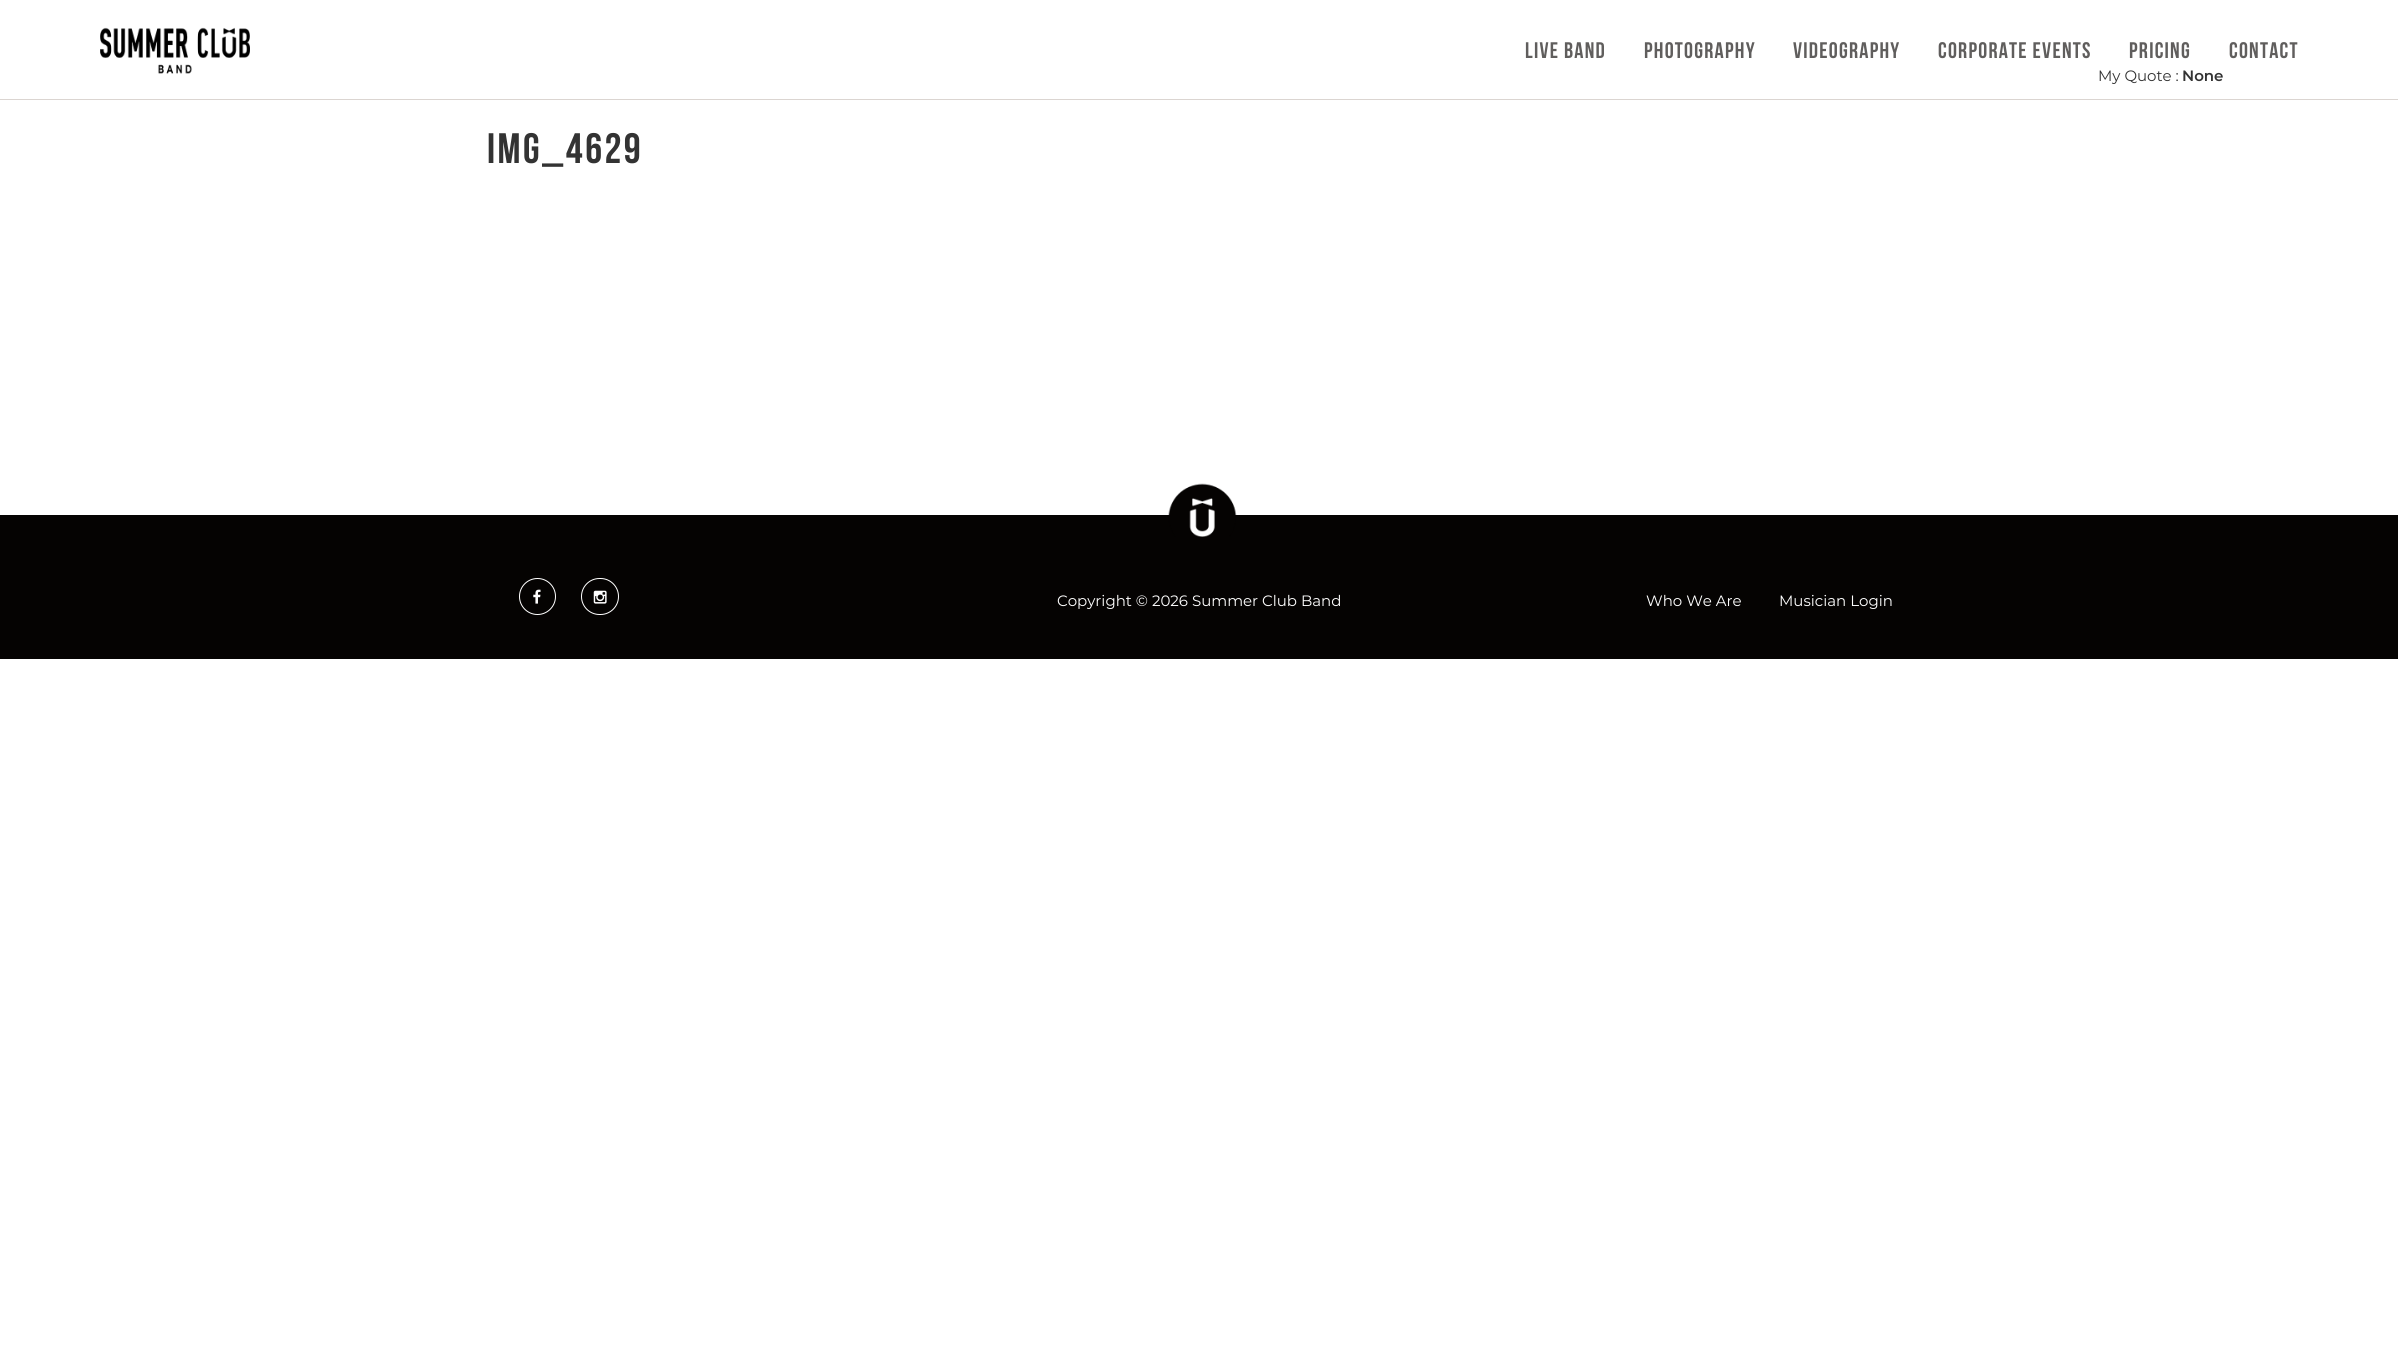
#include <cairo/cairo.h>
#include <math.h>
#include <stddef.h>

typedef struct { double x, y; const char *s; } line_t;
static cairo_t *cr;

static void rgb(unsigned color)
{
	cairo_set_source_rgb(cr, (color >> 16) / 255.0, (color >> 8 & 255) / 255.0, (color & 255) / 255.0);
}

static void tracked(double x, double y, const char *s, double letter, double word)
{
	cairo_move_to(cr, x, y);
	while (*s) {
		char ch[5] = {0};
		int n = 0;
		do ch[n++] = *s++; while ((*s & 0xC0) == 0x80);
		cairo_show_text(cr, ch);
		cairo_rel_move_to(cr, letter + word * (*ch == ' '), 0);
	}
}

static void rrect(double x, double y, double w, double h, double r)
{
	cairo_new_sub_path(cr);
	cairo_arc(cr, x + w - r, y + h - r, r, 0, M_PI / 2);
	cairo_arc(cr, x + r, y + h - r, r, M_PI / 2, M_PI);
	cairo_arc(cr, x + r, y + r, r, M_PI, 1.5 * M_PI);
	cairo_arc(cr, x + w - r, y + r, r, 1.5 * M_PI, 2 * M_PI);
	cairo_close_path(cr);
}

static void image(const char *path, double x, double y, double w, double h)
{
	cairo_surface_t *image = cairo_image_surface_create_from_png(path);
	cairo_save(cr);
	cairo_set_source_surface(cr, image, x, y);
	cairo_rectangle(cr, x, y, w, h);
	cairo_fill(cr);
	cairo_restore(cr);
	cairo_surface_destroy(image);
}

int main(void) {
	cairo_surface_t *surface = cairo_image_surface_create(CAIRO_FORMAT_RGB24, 2398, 1354);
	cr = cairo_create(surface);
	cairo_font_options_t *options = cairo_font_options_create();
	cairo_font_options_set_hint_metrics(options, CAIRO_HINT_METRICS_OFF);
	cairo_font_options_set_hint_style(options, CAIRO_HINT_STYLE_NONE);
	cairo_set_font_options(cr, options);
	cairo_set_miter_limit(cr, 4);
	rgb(0xffffff);
	cairo_paint(cr);
	rgb(0xdbd5d1);
	cairo_rectangle(cr, 0, 99, 2398, 1);
	cairo_fill(cr);
	image("img/1.png", 100, 27, 150, 47);
	rgb(0x050302);
	cairo_rectangle(cr, 0, 515, 2398, 144);
	cairo_fill(cr);
	image("img/2.png", 1168, 483, 69, 54);
	cairo_arc(cr, 537.5, 596.5, 18, 0, 2 * M_PI);
	rgb(0xffffff);
	cairo_set_line_width(cr, 1);
	cairo_stroke(cr);
	image("img/3.png", 533, 589, 8, 15);
	rrect(581.5, 578.5, 37, 36, 18);
	cairo_stroke(cr);
	image("img/4.png", 593, 590, 14, 14);
	cairo_select_font_face(cr, "Bebas Neue", CAIRO_FONT_SLANT_NORMAL, CAIRO_FONT_WEIGHT_BOLD);
	cairo_set_font_size(cr, 22.5);
	rgb(0x605e5d);
	{
		static const line_t items[] = {
			{1525, 58, "LIVE BAND"},
			{1644, 58, "PHOTOGRAPHY"},
			{1793, 58, "VIDEOGRAPHY"},
			{1938, 58, "CORPORATE EVENTS"},
			{2129, 58, "PRICING"},
			{2229, 58, "CONTACT"},
		};
		for (size_t i = 0; i < sizeof items / sizeof *items; i++) {
			tracked(items[i].x, items[i].y, items[i].s, 1.25, 0);
		}
	}
	cairo_select_font_face(cr, "Montserrat", CAIRO_FONT_SLANT_NORMAL, CAIRO_FONT_WEIGHT_NORMAL);
	cairo_set_font_size(cr, 15);
	rgb(0x333333);
	cairo_move_to(cr, 2098, 81);
	cairo_show_text(cr, "My Quote :");
	cairo_select_font_face(cr, "Montserrat SemiBold", CAIRO_FONT_SLANT_NORMAL, CAIRO_FONT_WEIGHT_NORMAL);
	cairo_move_to(cr, 2182, 81);
	cairo_show_text(cr, "None");
	cairo_select_font_face(cr, "Bebas Neue", CAIRO_FONT_SLANT_NORMAL, CAIRO_FONT_WEIGHT_BOLD);
	cairo_set_font_size(cr, 42.5);
	tracked(487, 163, "IMG_4629", 2.5, 0);
	cairo_select_font_face(cr, "Montserrat", CAIRO_FONT_SLANT_NORMAL, CAIRO_FONT_WEIGHT_NORMAL);
	cairo_set_font_size(cr, 15);
	rgb(0xffffff);
	{
		static const line_t items[] = {
			{1057, 606, "Copyright © 2026 Summer Club Band"},
			{1646, 606, "Who We Are"},
			{1779, 606, "Musician Login"},
		};
		for (size_t i = 0; i < sizeof items / sizeof *items; i++) {
			cairo_move_to(cr, items[i].x, items[i].y);
			cairo_show_text(cr, items[i].s);
		}
	}
	cairo_surface_write_to_png(surface, "page.png");
	cairo_font_options_destroy(options);
	cairo_destroy(cr);
	cairo_surface_destroy(surface);
	return 0;
}
